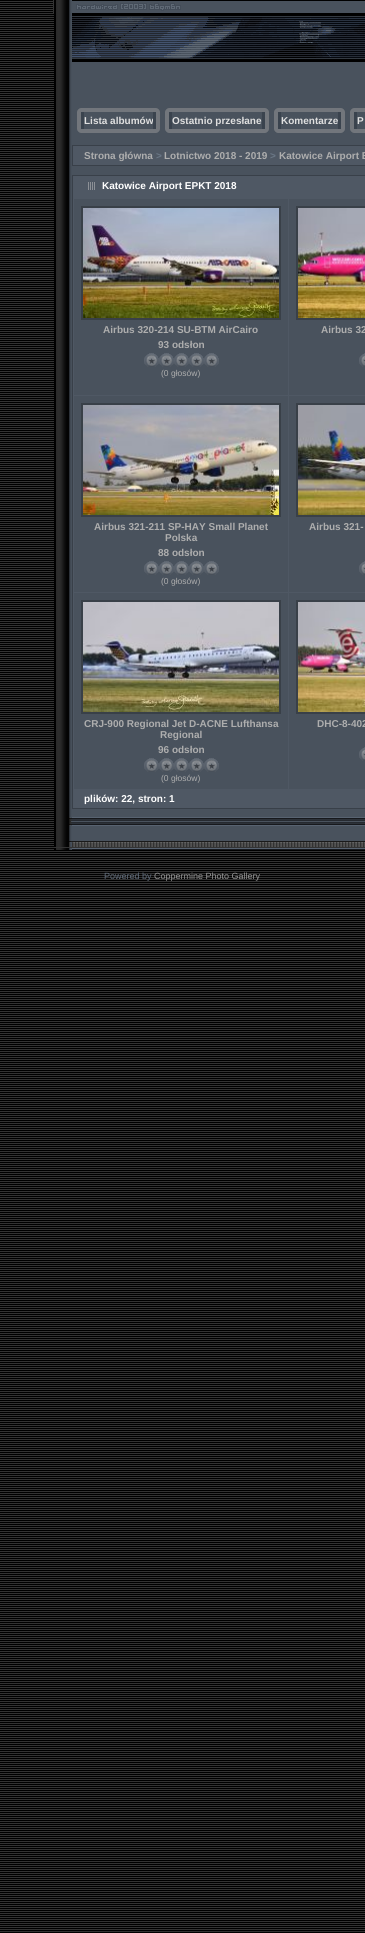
#include <cairo/cairo.h>
#include <math.h>
#include <stddef.h>

typedef struct { double x, y; const char *s; } line_t;
static cairo_t *cr;

static void rgb(unsigned color)
{
	cairo_set_source_rgb(cr, (color >> 16) / 255.0, (color >> 8 & 255) / 255.0, (color & 255) / 255.0);
}

static void image(const char *path, double x, double y, double w, double h)
{
	cairo_surface_t *image = cairo_image_surface_create_from_png(path);
	cairo_save(cr);
	cairo_set_source_surface(cr, image, x, y);
	cairo_rectangle(cr, x, y, w, h);
	cairo_fill(cr);
	cairo_restore(cr);
	cairo_surface_destroy(image);
}

int main(void) {
	cairo_surface_t *surface = cairo_image_surface_create(CAIRO_FORMAT_RGB24, 365, 1933);
	cr = cairo_create(surface);
	cairo_font_options_t *options = cairo_font_options_create();
	cairo_font_options_set_hint_metrics(options, CAIRO_HINT_METRICS_OFF);
	cairo_font_options_set_hint_style(options, CAIRO_HINT_STYLE_NONE);
	cairo_set_font_options(cr, options);
	cairo_set_miter_limit(cr, 4);
	rgb(0x000000);
	cairo_paint(cr);
	image("img/1.png", 0, 1, 365, 1931);
	rgb(0x333333);
	cairo_rectangle(cr, 53, 0, 1, 13);
	cairo_fill(cr);
	image("img/2.png", 54, 0, 18, 62);
	image("img/3.png", 72, 1, 293, 61);
	image("img/4.png", 72, 3, 293, 55);
	image("img/5.png", 54, 62, 18, 755);
	rgb(0x49525d);
	cairo_rectangle(cr, 72, 62, 293, 755);
	cairo_fill(cr);
	image("img/6.png", 77, 108, 7, 25);
	image("img/7.png", 84, 108, 69, 25);
	image("img/6.png", 165, 108, 7, 25);
	image("img/9.png", 172, 108, 90, 25);
	image("img/8.png", 262, 108, 7, 25);
	image("img/6.png", 274, 108, 7, 25);
	image("img/10.png", 281, 108, 57, 25);
	image("img/8.png", 338, 108, 7, 25);
	image("img/6.png", 350, 108, 7, 25);
	image("img/11.png", 357, 108, 8, 25);
	rgb(0x4f5864);
	cairo_rectangle(cr, 72.5, 145.5, 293, 20);
	cairo_fill_preserve(cr);
	rgb(0x394049);
	cairo_set_line_width(cr, 1);
	cairo_stroke(cr);
	rgb(0x4f5864);
	cairo_rectangle(cr, 72.5, 175.5, 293, 633);
	cairo_fill_preserve(cr);
	rgb(0x394049);
	cairo_stroke(cr);
	image("img/12.png", 88, 182, 7, 8);
	rgb(0x49525d);
	cairo_rectangle(cr, 74, 199, 214, 196);
	cairo_fill(cr);
	cairo_rectangle(cr, 82, 207, 198, 112);
	rgb(0x394048);
	cairo_set_line_width(cr, 2);
	cairo_stroke(cr);
	image("img/13.png", 83, 208, 196, 110);
	image("img/14.png", 144, 353, 15, 14);
	image("img/14.png", 159, 353, 15, 14);
	image("img/14.png", 174, 353, 15, 14);
	image("img/14.png", 189, 353, 15, 14);
	image("img/14.png", 204, 353, 15, 14);
	rgb(0x49525d);
	cairo_rectangle(cr, 289, 199, 76, 196);
	cairo_fill(cr);
	cairo_rectangle(cr, 297, 207, 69, 112);
	rgb(0x394048);
	cairo_stroke(cr);
	image("img/15.png", 298, 208, 67, 110);
	image("img/16.png", 359, 353, 6, 14);
	rgb(0x49525d);
	cairo_rectangle(cr, 74, 396, 214, 196);
	cairo_fill(cr);
	cairo_rectangle(cr, 82, 404, 198, 112);
	rgb(0x394048);
	cairo_stroke(cr);
	image("img/17.png", 83, 405, 196, 110);
	image("img/14.png", 144, 561, 15, 14);
	image("img/14.png", 159, 561, 15, 14);
	image("img/14.png", 174, 561, 15, 14);
	image("img/14.png", 189, 561, 15, 14);
	image("img/14.png", 204, 561, 15, 14);
	rgb(0x49525d);
	cairo_rectangle(cr, 289, 396, 76, 196);
	cairo_fill(cr);
	cairo_rectangle(cr, 297, 404, 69, 112);
	rgb(0x394048);
	cairo_stroke(cr);
	image("img/18.png", 298, 405, 67, 110);
	image("img/16.png", 359, 561, 6, 14);
	rgb(0x49525d);
	cairo_rectangle(cr, 74, 593, 214, 196);
	cairo_fill(cr);
	cairo_rectangle(cr, 82, 601, 198, 112);
	rgb(0x394048);
	cairo_stroke(cr);
	image("img/19.png", 83, 602, 196, 110);
	image("img/14.png", 144, 758, 15, 14);
	image("img/14.png", 159, 758, 15, 14);
	image("img/14.png", 174, 758, 15, 14);
	image("img/14.png", 189, 758, 15, 14);
	image("img/14.png", 204, 758, 15, 14);
	rgb(0x49525d);
	cairo_rectangle(cr, 289, 593, 76, 196);
	cairo_fill(cr);
	cairo_rectangle(cr, 297, 601, 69, 112);
	rgb(0x394048);
	cairo_stroke(cr);
	image("img/20.png", 298, 602, 67, 110);
	image("img/16.png", 359, 747, 6, 14);
	image("img/21.png", 54, 848, 18, 2);
	image("img/22.png", 54, 817, 18, 31);
	image("img/23.png", 72, 817, 293, 33);
	cairo_select_font_face(cr, "Liberation Sans", CAIRO_FONT_SLANT_NORMAL, CAIRO_FONT_WEIGHT_BOLD);
	cairo_set_font_size(cr, 10);
	rgb(0xdfdfdf);
	cairo_move_to(cr, 84, 124);
	cairo_show_text(cr, "Lista albumów");
	image("img/8.png", 153, 108, 7, 25);
	{
		static const line_t items[] = {
			{172, 124, "Ostatnio przesłane"},
			{281, 124, "Komentarze"},
			{357, 124, "P"},
		};
		for (size_t i = 0; i < sizeof items / sizeof *items; i++) {
			cairo_move_to(cr, items[i].x, items[i].y);
			cairo_show_text(cr, items[i].s);
		}
	}
	rgb(0xaeaeae);
	cairo_move_to(cr, 84, 159);
	cairo_show_text(cr, "Strona główna");
	rgb(0x6a7786);
	cairo_move_to(cr, 156, 159);
	cairo_show_text(cr, ">");
	rgb(0xaeaeae);
	cairo_move_to(cr, 164, 159);
	cairo_show_text(cr, "Lotnictwo 2018 - 2019");
	rgb(0x6a7786);
	cairo_move_to(cr, 270, 159);
	cairo_show_text(cr, ">");
	rgb(0xaeaeae);
	cairo_move_to(cr, 279, 159);
	cairo_show_text(cr, "Katowice Airport E");
	rgb(0xffffff);
	cairo_move_to(cr, 102, 189);
	cairo_show_text(cr, "Katowice Airport EPKT 2018");
	rgb(0xaeaeae);
	cairo_move_to(cr, 103, 333);
	cairo_show_text(cr, "Airbus 320-214 SU-BTM AirCairo");
	cairo_move_to(cr, 158, 348);
	cairo_show_text(cr, "93 odsłon");
	cairo_select_font_face(cr, "Liberation Sans", CAIRO_FONT_SLANT_NORMAL, CAIRO_FONT_WEIGHT_NORMAL);
	cairo_set_font_size(cr, 8.5);
	cairo_move_to(cr, 161, 376);
	cairo_show_text(cr, "(0 głosów)");
	cairo_select_font_face(cr, "Liberation Sans", CAIRO_FONT_SLANT_NORMAL, CAIRO_FONT_WEIGHT_BOLD);
	cairo_set_font_size(cr, 10);
	{
		static const line_t items[] = {
			{321, 333, "Airbus 32"},
			{94, 530, "Airbus 321-211 SP-HAY Small Planet"},
			{165, 541, "Polska"},
			{158, 556, "88 odsłon"},
		};
		for (size_t i = 0; i < sizeof items / sizeof *items; i++) {
			cairo_move_to(cr, items[i].x, items[i].y);
			cairo_show_text(cr, items[i].s);
		}
	}
	cairo_select_font_face(cr, "Liberation Sans", CAIRO_FONT_SLANT_NORMAL, CAIRO_FONT_WEIGHT_NORMAL);
	cairo_set_font_size(cr, 8.5);
	cairo_move_to(cr, 161, 584);
	cairo_show_text(cr, "(0 głosów)");
	cairo_select_font_face(cr, "Liberation Sans", CAIRO_FONT_SLANT_NORMAL, CAIRO_FONT_WEIGHT_BOLD);
	cairo_set_font_size(cr, 10);
	{
		static const line_t items[] = {
			{309, 530, "Airbus 321-"},
			{84, 727, "CRJ-900 Regional Jet D-ACNE Lufthansa"},
			{160, 738, "Regional"},
			{158, 753, "96 odsłon"},
		};
		for (size_t i = 0; i < sizeof items / sizeof *items; i++) {
			cairo_move_to(cr, items[i].x, items[i].y);
			cairo_show_text(cr, items[i].s);
		}
	}
	cairo_select_font_face(cr, "Liberation Sans", CAIRO_FONT_SLANT_NORMAL, CAIRO_FONT_WEIGHT_NORMAL);
	cairo_set_font_size(cr, 8.5);
	cairo_move_to(cr, 161, 781);
	cairo_show_text(cr, "(0 głosów)");
	cairo_select_font_face(cr, "Liberation Sans", CAIRO_FONT_SLANT_NORMAL, CAIRO_FONT_WEIGHT_BOLD);
	cairo_set_font_size(cr, 10);
	cairo_move_to(cr, 317, 727);
	cairo_show_text(cr, "DHC-8-402");
	rgb(0xffffff);
	cairo_move_to(cr, 84, 802);
	cairo_show_text(cr, "plików: 22, stron: 1");
	cairo_select_font_face(cr, "Liberation Sans", CAIRO_FONT_SLANT_NORMAL, CAIRO_FONT_WEIGHT_NORMAL);
	cairo_set_font_size(cr, 9);
	rgb(0x616c7a);
	cairo_move_to(cr, 104, 879);
	cairo_show_text(cr, "Powered by");
	rgb(0x949494);
	cairo_move_to(cr, 154, 879);
	cairo_show_text(cr, "Coppermine Photo Gallery");
	cairo_surface_write_to_png(surface, "page.png");
	cairo_font_options_destroy(options);
	cairo_destroy(cr);
	cairo_surface_destroy(surface);
	return 0;
}
